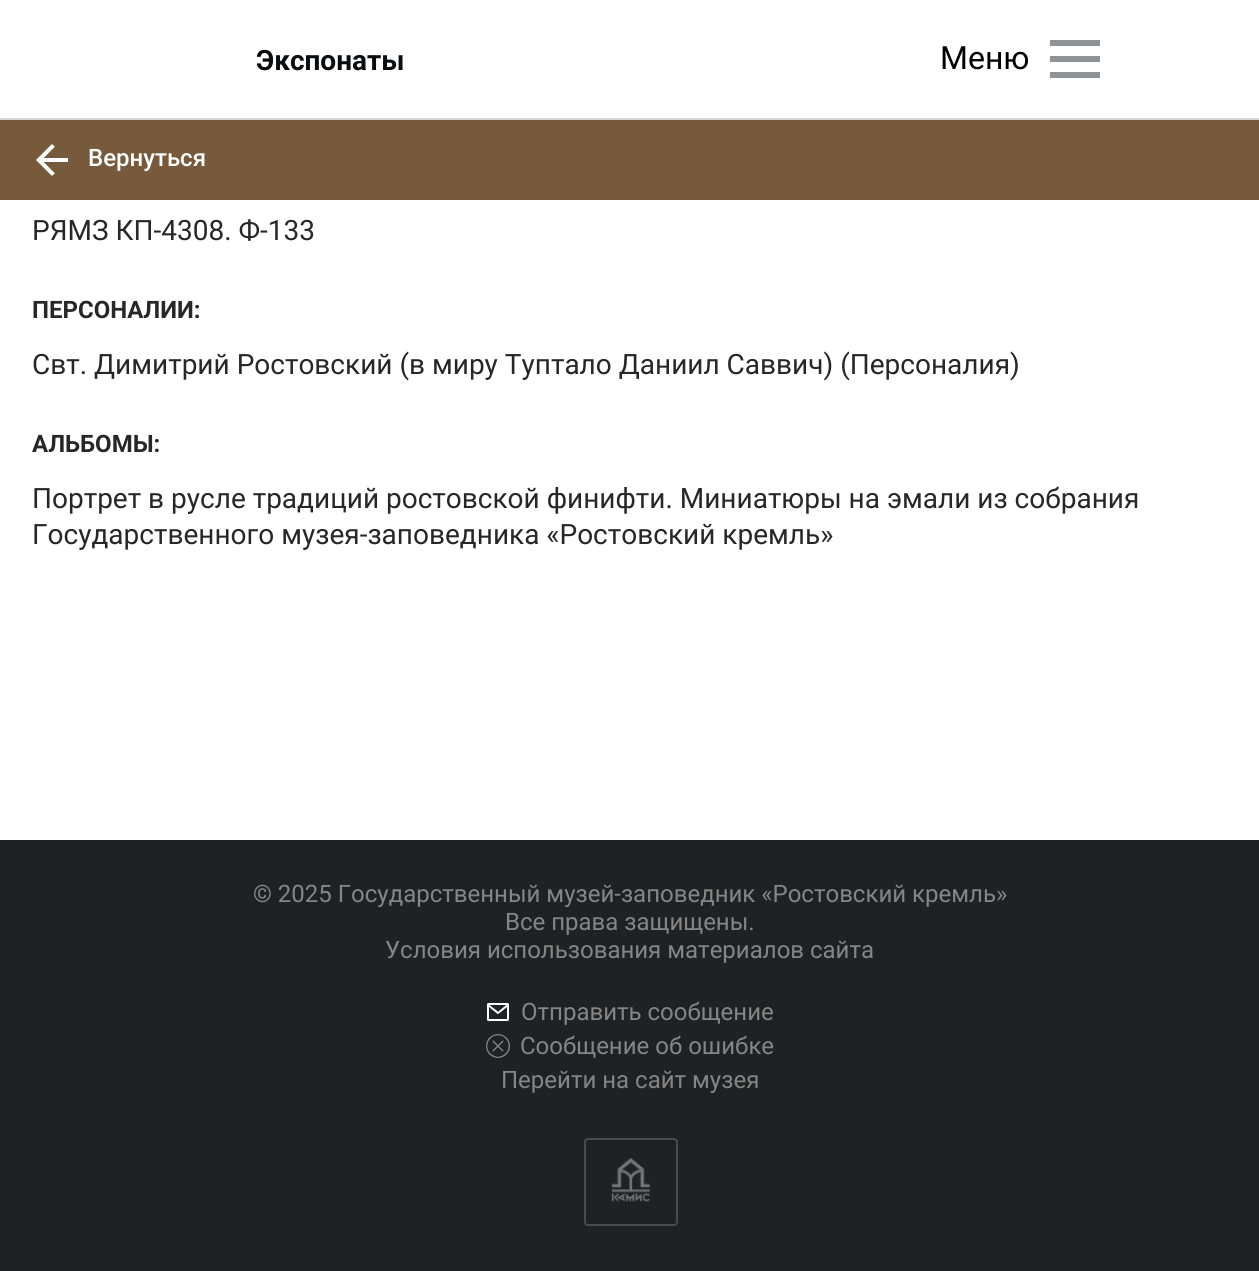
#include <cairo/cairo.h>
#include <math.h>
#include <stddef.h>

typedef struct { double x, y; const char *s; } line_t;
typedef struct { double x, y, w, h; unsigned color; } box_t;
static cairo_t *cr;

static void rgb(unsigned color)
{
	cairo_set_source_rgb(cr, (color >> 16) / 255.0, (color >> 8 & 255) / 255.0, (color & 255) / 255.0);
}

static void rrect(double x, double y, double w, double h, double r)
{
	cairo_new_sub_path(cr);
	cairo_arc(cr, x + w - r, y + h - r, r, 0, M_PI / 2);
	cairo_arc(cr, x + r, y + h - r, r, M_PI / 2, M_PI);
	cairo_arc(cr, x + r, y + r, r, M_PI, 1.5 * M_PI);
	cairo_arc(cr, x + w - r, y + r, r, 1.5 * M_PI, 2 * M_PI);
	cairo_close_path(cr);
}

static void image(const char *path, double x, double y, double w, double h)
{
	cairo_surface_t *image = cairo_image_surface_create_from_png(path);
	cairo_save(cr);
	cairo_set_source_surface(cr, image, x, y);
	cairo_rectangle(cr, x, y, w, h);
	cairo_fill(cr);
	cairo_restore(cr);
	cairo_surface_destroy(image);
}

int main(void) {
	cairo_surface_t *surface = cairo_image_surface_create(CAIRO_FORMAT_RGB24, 1259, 1271);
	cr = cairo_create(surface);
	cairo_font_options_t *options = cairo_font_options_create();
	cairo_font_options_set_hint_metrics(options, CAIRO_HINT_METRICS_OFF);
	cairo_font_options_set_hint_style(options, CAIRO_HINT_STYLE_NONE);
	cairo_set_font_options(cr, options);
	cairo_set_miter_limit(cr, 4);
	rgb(0xffffff);
	cairo_paint(cr);
	{
		static const box_t items[] = {
			{0, 118, 1259, 2, 0xd3d3d3},
			{1050, 40, 50, 6, 0x8e9195},
			{1050, 56, 50, 6, 0x8e9195},
			{1050, 72, 50, 6, 0x8e9195},
			{0, 120, 1259, 80, 0x775a3c},
		};
		for (size_t i = 0; i < sizeof items / sizeof *items; i++) {
			rgb(items[i].color);
			cairo_rectangle(cr, items[i].x, items[i].y, items[i].w, items[i].h);
			cairo_fill(cr);
		}
	}
	image("img/1.png", 36, 144, 32, 32);
	rgb(0x1f2224);
	cairo_rectangle(cr, 0, 840, 1259, 431);
	cairo_fill(cr);
	image("img/2.png", 487, 1003, 22, 18);
	image("img/3.png", 486, 1034, 24, 24);
	rrect(585, 1139, 92, 86, 3);
	rgb(0x484a4b);
	cairo_stroke(cr);
	image("img/4.png", 611, 1158, 39, 44);
	cairo_select_font_face(cr, "Roboto", CAIRO_FONT_SLANT_NORMAL, CAIRO_FONT_WEIGHT_BOLD);
	cairo_set_font_size(cr, 28);
	rgb(0x0a0d10);
	cairo_move_to(cr, 256, 70);
	cairo_show_text(cr, "Экспонаты");
	cairo_select_font_face(cr, "Roboto", CAIRO_FONT_SLANT_NORMAL, CAIRO_FONT_WEIGHT_NORMAL);
	cairo_set_font_size(cr, 32);
	rgb(0x000000);
	cairo_move_to(cr, 940, 69);
	cairo_show_text(cr, "Меню");
	cairo_select_font_face(cr, "Roboto Medium", CAIRO_FONT_SLANT_NORMAL, CAIRO_FONT_WEIGHT_NORMAL);
	cairo_set_font_size(cr, 24);
	rgb(0xffffff);
	cairo_move_to(cr, 88, 166);
	cairo_show_text(cr, "Вернуться");
	cairo_select_font_face(cr, "Roboto", CAIRO_FONT_SLANT_NORMAL, CAIRO_FONT_WEIGHT_NORMAL);
	cairo_set_font_size(cr, 28);
	rgb(0x272727);
	cairo_move_to(cr, 32, 240);
	cairo_show_text(cr, "РЯМЗ КП-4308. Ф-133");
	cairo_select_font_face(cr, "Roboto", CAIRO_FONT_SLANT_NORMAL, CAIRO_FONT_WEIGHT_BOLD);
	cairo_set_font_size(cr, 24);
	cairo_move_to(cr, 32, 318);
	cairo_show_text(cr, "ПЕРСОНАЛИИ:");
	cairo_select_font_face(cr, "Roboto", CAIRO_FONT_SLANT_NORMAL, CAIRO_FONT_WEIGHT_NORMAL);
	cairo_set_font_size(cr, 28);
	cairo_move_to(cr, 32, 374);
	cairo_show_text(cr, "Свт. Димитрий Ростовский (в миру Туптало Даниил Саввич) (Персоналия)");
	cairo_select_font_face(cr, "Roboto", CAIRO_FONT_SLANT_NORMAL, CAIRO_FONT_WEIGHT_BOLD);
	cairo_set_font_size(cr, 24);
	cairo_move_to(cr, 32, 452);
	cairo_show_text(cr, "АЛЬБОМЫ:");
	cairo_select_font_face(cr, "Roboto", CAIRO_FONT_SLANT_NORMAL, CAIRO_FONT_WEIGHT_NORMAL);
	cairo_set_font_size(cr, 28);
	cairo_move_to(cr, 32, 508);
	cairo_show_text(cr, "Портрет в русле традиций ростовской финифти. Миниатюры на эмали из собрания");
	cairo_move_to(cr, 32, 544);
	cairo_show_text(cr, "Государственного музея-заповедника «Ростовский кремль»");
	cairo_set_font_size(cr, 24);
	rgb(0x858585);
	{
		static const line_t items[] = {
			{253, 902, "© 2025 Государственный музей-заповедник «Ростовский кремль»"},
			{505, 930, "Все права защищены."},
			{385, 958, "Условия использования материалов сайта"},
			{521, 1020, "Отправить сообщение"},
			{520, 1054, "Сообщение об ошибке"},
			{501, 1088, "Перейти на сайт музея"},
		};
		for (size_t i = 0; i < sizeof items / sizeof *items; i++) {
			cairo_move_to(cr, items[i].x, items[i].y);
			cairo_show_text(cr, items[i].s);
		}
	}
	cairo_surface_write_to_png(surface, "page.png");
	cairo_font_options_destroy(options);
	cairo_destroy(cr);
	cairo_surface_destroy(surface);
	return 0;
}
